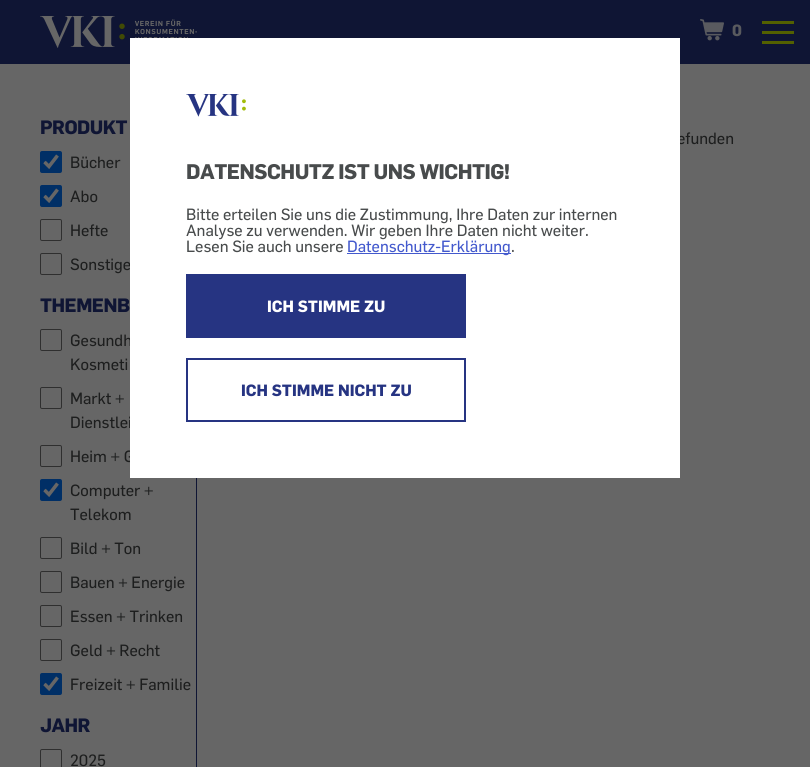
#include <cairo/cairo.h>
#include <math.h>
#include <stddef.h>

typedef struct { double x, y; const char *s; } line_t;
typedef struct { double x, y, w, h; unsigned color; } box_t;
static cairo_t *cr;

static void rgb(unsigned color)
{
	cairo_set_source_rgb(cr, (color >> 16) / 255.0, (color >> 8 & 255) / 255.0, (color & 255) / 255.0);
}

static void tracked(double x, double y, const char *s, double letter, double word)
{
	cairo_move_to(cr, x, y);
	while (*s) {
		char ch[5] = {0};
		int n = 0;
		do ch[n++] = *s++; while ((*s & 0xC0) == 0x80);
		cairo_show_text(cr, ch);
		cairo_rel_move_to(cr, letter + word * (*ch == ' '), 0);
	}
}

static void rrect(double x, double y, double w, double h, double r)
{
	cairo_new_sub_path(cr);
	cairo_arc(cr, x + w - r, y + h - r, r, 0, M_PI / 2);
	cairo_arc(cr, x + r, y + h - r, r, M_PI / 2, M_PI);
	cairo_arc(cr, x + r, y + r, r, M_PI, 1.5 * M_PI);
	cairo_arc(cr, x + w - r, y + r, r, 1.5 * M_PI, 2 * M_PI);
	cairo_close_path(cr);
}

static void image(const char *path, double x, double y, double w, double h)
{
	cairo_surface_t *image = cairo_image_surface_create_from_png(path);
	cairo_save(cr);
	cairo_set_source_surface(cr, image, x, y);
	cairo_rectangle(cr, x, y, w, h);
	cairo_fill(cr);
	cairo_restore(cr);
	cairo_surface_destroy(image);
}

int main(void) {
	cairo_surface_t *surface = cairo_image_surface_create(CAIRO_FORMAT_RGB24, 810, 767);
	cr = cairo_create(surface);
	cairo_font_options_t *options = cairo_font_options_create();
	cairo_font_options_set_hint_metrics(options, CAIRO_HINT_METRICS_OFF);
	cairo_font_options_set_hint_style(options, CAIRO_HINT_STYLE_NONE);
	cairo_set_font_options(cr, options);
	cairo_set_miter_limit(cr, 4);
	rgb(0x666666);
	cairo_paint(cr);
	rgb(0x0f1534);
	cairo_rectangle(cr, 0, 0, 810, 64);
	cairo_fill(cr);
	image("img/1.png", 40, 16, 157, 32);
	image("img/2.png", 700, 19, 24, 22);
	{
		static const box_t items[] = {
			{762, 21, 32, 3, 0x536000},
			{762, 31, 32, 3, 0x536000},
			{762, 41, 32, 3, 0x536000},
			{196, 478, 1, 289, 0x0f1534},
		};
		for (size_t i = 0; i < sizeof items / sizeof *items; i++) {
			rgb(items[i].color);
			cairo_rectangle(cr, items[i].x, items[i].y, items[i].w, items[i].h);
			cairo_fill(cr);
		}
	}
	rgb(0x002f66);
	rrect(40, 151, 22, 22, 2);
	cairo_fill(cr);
	cairo_new_path(cr);
	cairo_move_to(cr, 44.5, 162);
	cairo_line_to(cr, 49, 166.5);
	cairo_line_to(cr, 57.5, 155.5);
	rgb(0x666666);
	cairo_set_line_width(cr, 3.5);
	cairo_stroke(cr);
	image("img/3.png", 44, 157, 14, 7);
	rgb(0x002f66);
	rrect(40, 185, 22, 22, 2);
	cairo_fill(cr);
	cairo_new_path(cr);
	cairo_move_to(cr, 44.5, 196);
	cairo_line_to(cr, 49, 200.5);
	cairo_line_to(cr, 57.5, 189.5);
	rgb(0x666666);
	cairo_stroke(cr);
	image("img/3.png", 44, 191, 14, 7);
	rrect(40.5, 219.5, 21, 21, 1.5);
	rgb(0x2f2f2f);
	cairo_set_line_width(cr, 1);
	cairo_stroke(cr);
	rrect(40.5, 253.5, 21, 21, 1.5);
	cairo_stroke(cr);
	rrect(40.5, 329.5, 21, 21, 1.5);
	cairo_stroke(cr);
	rrect(40.5, 387.5, 21, 21, 1.5);
	cairo_stroke(cr);
	rrect(40.5, 445.5, 21, 21, 1.5);
	cairo_stroke(cr);
	rgb(0x002f66);
	rrect(40, 479, 22, 22, 2);
	cairo_fill(cr);
	cairo_new_path(cr);
	cairo_move_to(cr, 44.5, 490);
	cairo_line_to(cr, 49, 494.5);
	cairo_line_to(cr, 57.5, 483.5);
	rgb(0x666666);
	cairo_set_line_width(cr, 3.5);
	cairo_stroke(cr);
	image("img/3.png", 44, 485, 14, 7);
	rrect(40.5, 537.5, 21, 21, 1.5);
	rgb(0x2f2f2f);
	cairo_set_line_width(cr, 1);
	cairo_stroke(cr);
	rrect(40.5, 571.5, 21, 21, 1.5);
	cairo_stroke(cr);
	rrect(40.5, 605.5, 21, 21, 1.5);
	cairo_stroke(cr);
	rrect(40.5, 639.5, 21, 21, 1.5);
	cairo_stroke(cr);
	rgb(0x002f66);
	rrect(40, 673, 22, 22, 2);
	cairo_fill(cr);
	cairo_new_path(cr);
	cairo_move_to(cr, 44.5, 684);
	cairo_line_to(cr, 49, 688.5);
	cairo_line_to(cr, 57.5, 677.5);
	rgb(0x666666);
	cairo_set_line_width(cr, 3.5);
	cairo_stroke(cr);
	image("img/3.png", 44, 679, 14, 7);
	rrect(40.5, 749.5, 21, 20, 1.5);
	rgb(0x2f2f2f);
	cairo_set_line_width(cr, 1);
	cairo_stroke(cr);
	cairo_select_font_face(cr, "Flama", CAIRO_FONT_SLANT_NORMAL, CAIRO_FONT_WEIGHT_BOLD);
	cairo_set_font_size(cr, 16);
	rgb(0x595a5e);
	cairo_move_to(cr, 732, 36);
	cairo_show_text(cr, "0");
	cairo_set_font_size(cr, 19);
	rgb(0x0f1534);
	tracked(40, 134, "PRODUKT", -0.5, 0);
	cairo_select_font_face(cr, "Flama Medium", CAIRO_FONT_SLANT_NORMAL, CAIRO_FONT_WEIGHT_NORMAL);
	cairo_set_font_size(cr, 16);
	rgb(0x1d1e1e);
	{
		static const line_t items[] = {
			{70, 168, "Bücher"},
			{70, 202, "Abo"},
			{70, 236, "Hefte"},
			{70, 270, "Sonstige"},
		};
		for (size_t i = 0; i < sizeof items / sizeof *items; i++) {
			cairo_move_to(cr, items[i].x, items[i].y);
			cairo_show_text(cr, items[i].s);
		}
	}
	cairo_select_font_face(cr, "Flama", CAIRO_FONT_SLANT_NORMAL, CAIRO_FONT_WEIGHT_BOLD);
	cairo_set_font_size(cr, 19);
	rgb(0x0f1534);
	tracked(40, 312, "THEMENB", -0.5, 0);
	cairo_select_font_face(cr, "Flama Medium", CAIRO_FONT_SLANT_NORMAL, CAIRO_FONT_WEIGHT_NORMAL);
	cairo_set_font_size(cr, 16);
	rgb(0x1d1e1e);
	{
		static const line_t items[] = {
			{70, 346, "Gesundh"},
			{70, 370, "Kosmeti"},
			{70, 404, "Markt +"},
			{70, 428, "Dienstlei"},
			{70, 462, "Heim + G"},
			{70, 496, "Computer +"},
			{70, 520, "Telekom"},
			{70, 554, "Bild + Ton"},
			{70, 588, "Bauen + Energie"},
			{70, 622, "Essen + Trinken"},
			{70, 656, "Geld + Recht"},
			{70, 690, "Freizeit + Familie"},
		};
		for (size_t i = 0; i < sizeof items / sizeof *items; i++) {
			cairo_move_to(cr, items[i].x, items[i].y);
			cairo_show_text(cr, items[i].s);
		}
	}
	cairo_select_font_face(cr, "Flama", CAIRO_FONT_SLANT_NORMAL, CAIRO_FONT_WEIGHT_BOLD);
	cairo_set_font_size(cr, 19);
	rgb(0x0f1534);
	tracked(40, 732, "JAHR", -0.5, 0);
	cairo_select_font_face(cr, "Flama Medium", CAIRO_FONT_SLANT_NORMAL, CAIRO_FONT_WEIGHT_NORMAL);
	cairo_set_font_size(cr, 16);
	rgb(0x1d1e1e);
	cairo_move_to(cr, 70, 766);
	cairo_show_text(cr, "2025");
	cairo_move_to(cr, 677, 144);
	cairo_show_text(cr, "efunden");
	rgb(0xffffff);
	cairo_rectangle(cr, 130, 38, 550, 440);
	cairo_fill(cr);
	image("img/4.png", 186, 94, 60, 23);
	cairo_select_font_face(cr, "Flama", CAIRO_FONT_SLANT_NORMAL, CAIRO_FONT_WEIGHT_BOLD);
	cairo_set_font_size(cr, 20.75);
	rgb(0x484b4c);
	tracked(186, 179, "DATENSCHUTZ IST UNS WICHTIG!", -0.5, 0);
	cairo_select_font_face(cr, "Flama Medium", CAIRO_FONT_SLANT_NORMAL, CAIRO_FONT_WEIGHT_NORMAL);
	cairo_set_font_size(cr, 16);
	{
		static const line_t items[] = {
			{186, 220, "Bitte erteilen Sie uns die Zustimmung, Ihre Daten zur internen"},
			{186, 236, "Analyse zu verwenden. Wir geben Ihre Daten nicht weiter."},
			{186, 252, "Lesen Sie auch unsere"},
		};
		for (size_t i = 0; i < sizeof items / sizeof *items; i++) {
			cairo_move_to(cr, items[i].x, items[i].y);
			cairo_show_text(cr, items[i].s);
		}
	}
	rgb(0x4359cd);
	cairo_rectangle(cr, 347, 253, 164, 1);
	cairo_fill(cr);
	cairo_move_to(cr, 347, 252);
	cairo_show_text(cr, "Datenschutz-Erklärung");
	rgb(0x484b4c);
	cairo_move_to(cr, 511, 252);
	cairo_show_text(cr, ".");
	rgb(0x263482);
	cairo_rectangle(cr, 186, 274, 280, 64);
	cairo_fill(cr);
	cairo_select_font_face(cr, "Flama", CAIRO_FONT_SLANT_NORMAL, CAIRO_FONT_WEIGHT_BOLD);
	rgb(0xffffff);
	cairo_move_to(cr, 267, 312);
	cairo_show_text(cr, "ICH STIMME ZU");
	cairo_rectangle(cr, 187, 359, 278, 62);
	rgb(0x263482);
	cairo_set_line_width(cr, 2);
	cairo_stroke(cr);
	cairo_move_to(cr, 241, 396);
	cairo_show_text(cr, "ICH STIMME NICHT ZU");
	cairo_surface_write_to_png(surface, "page.png");
	cairo_font_options_destroy(options);
	cairo_destroy(cr);
	cairo_surface_destroy(surface);
	return 0;
}
